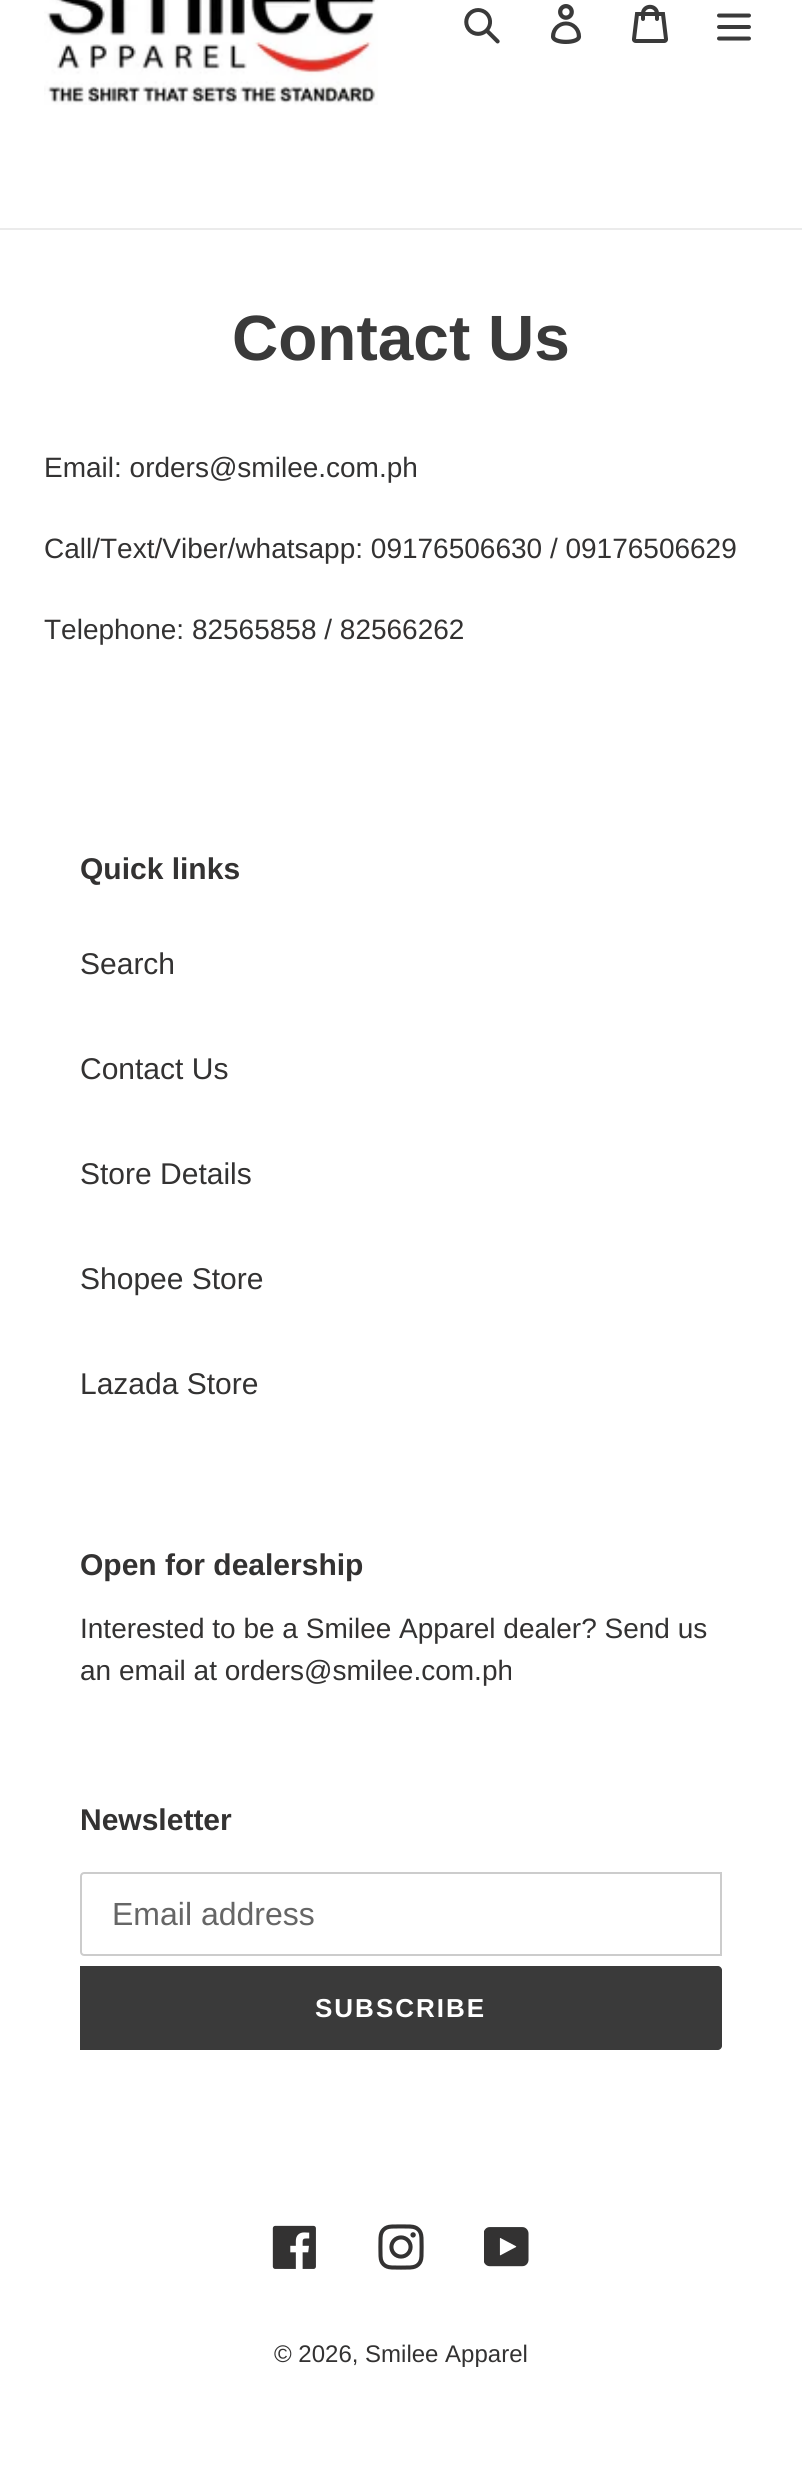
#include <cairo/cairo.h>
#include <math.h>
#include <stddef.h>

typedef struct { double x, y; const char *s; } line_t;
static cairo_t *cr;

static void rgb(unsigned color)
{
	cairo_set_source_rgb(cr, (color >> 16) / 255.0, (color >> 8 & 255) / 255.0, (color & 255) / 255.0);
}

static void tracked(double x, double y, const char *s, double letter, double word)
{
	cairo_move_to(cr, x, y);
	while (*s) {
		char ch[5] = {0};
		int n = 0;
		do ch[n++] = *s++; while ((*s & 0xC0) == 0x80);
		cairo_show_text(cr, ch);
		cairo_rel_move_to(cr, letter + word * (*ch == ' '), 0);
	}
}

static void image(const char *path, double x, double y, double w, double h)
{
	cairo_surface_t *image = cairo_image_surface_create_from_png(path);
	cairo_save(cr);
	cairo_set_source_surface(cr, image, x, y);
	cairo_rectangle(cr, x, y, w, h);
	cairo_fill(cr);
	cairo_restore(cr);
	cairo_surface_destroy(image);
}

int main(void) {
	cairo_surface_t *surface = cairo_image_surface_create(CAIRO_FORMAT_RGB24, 802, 2483);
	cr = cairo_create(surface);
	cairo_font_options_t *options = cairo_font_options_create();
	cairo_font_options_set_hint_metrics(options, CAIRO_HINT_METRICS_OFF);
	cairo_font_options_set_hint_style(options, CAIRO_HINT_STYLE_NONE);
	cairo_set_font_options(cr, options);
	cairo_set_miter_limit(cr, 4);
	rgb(0xffffff);
	cairo_paint(cr);
	rgb(0xebebeb);
	cairo_rectangle(cr, 0, 228, 802, 2);
	cairo_fill(cr);
	image("img/1.png", 44, 0, 334, 105);
	image("img/2.png", 464, 8, 36, 36);
	image("img/3.png", 551, 4, 31, 40);
	image("img/4.png", 632, 4, 36, 39);
	image("img/5.png", 717, 13, 34, 28);
	cairo_new_path(cr);
	cairo_move_to(cr, 84, 1873);
	cairo_line_to(cr, 721, 1873);
	cairo_line_to(cr, 721, 1955);
	cairo_line_to(cr, 84, 1955);
	cairo_curve_to(cr, 82.5, 1955, 81, 1953.5, 81, 1952);
	cairo_line_to(cr, 81, 1876);
	cairo_curve_to(cr, 81, 1874.5, 82.5, 1873, 84, 1873);
	cairo_close_path(cr);
	rgb(0xcccccc);
	cairo_stroke(cr);
	rgb(0x3a3a3a);
	cairo_new_path(cr);
	cairo_move_to(cr, 80, 1966);
	cairo_line_to(cr, 718, 1966);
	cairo_curve_to(cr, 720, 1966, 722, 1968, 722, 1970);
	cairo_line_to(cr, 722, 2046);
	cairo_curve_to(cr, 722, 2048, 720, 2050, 718, 2050);
	cairo_line_to(cr, 80, 2050);
	cairo_close_path(cr);
	cairo_fill(cr);
	image("img/6.png", 272, 2225, 44, 44);
	image("img/7.png", 378, 2224, 46, 46);
	image("img/8.png", 484, 2227, 45, 40);
	cairo_select_font_face(cr, "Liberation Sans", CAIRO_FONT_SLANT_NORMAL, CAIRO_FONT_WEIGHT_BOLD);
	cairo_set_font_size(cr, 64);
	cairo_move_to(cr, 232, 360);
	cairo_show_text(cr, "Contact Us");
	cairo_select_font_face(cr, "Liberation Sans", CAIRO_FONT_SLANT_NORMAL, CAIRO_FONT_WEIGHT_NORMAL);
	cairo_set_font_size(cr, 28);
	rgb(0x333232);
	{
		static const line_t items[] = {
			{44, 477, "Email: orders@smilee.com.ph"},
			{44, 558, "Call/Text/Viber/whatsapp: 09176506630 / 09176506629"},
			{44, 639, "Telephone: 82565858 / 82566262"},
		};
		for (size_t i = 0; i < sizeof items / sizeof *items; i++) {
			cairo_move_to(cr, items[i].x, items[i].y);
			cairo_show_text(cr, items[i].s);
		}
	}
	cairo_select_font_face(cr, "Liberation Sans", CAIRO_FONT_SLANT_NORMAL, CAIRO_FONT_WEIGHT_BOLD);
	cairo_set_font_size(cr, 30);
	cairo_move_to(cr, 80, 879);
	cairo_show_text(cr, "Quick links");
	cairo_select_font_face(cr, "Liberation Sans", CAIRO_FONT_SLANT_NORMAL, CAIRO_FONT_WEIGHT_NORMAL);
	{
		static const line_t items[] = {
			{80, 974, "Search"},
			{80, 1079, "Contact Us"},
			{80, 1184, "Store Details"},
			{80, 1289, "Shopee Store"},
			{80, 1394, "Lazada Store"},
		};
		for (size_t i = 0; i < sizeof items / sizeof *items; i++) {
			cairo_move_to(cr, items[i].x, items[i].y);
			cairo_show_text(cr, items[i].s);
		}
	}
	cairo_select_font_face(cr, "Liberation Sans", CAIRO_FONT_SLANT_NORMAL, CAIRO_FONT_WEIGHT_BOLD);
	cairo_move_to(cr, 80, 1575);
	cairo_show_text(cr, "Open for dealership");
	cairo_select_font_face(cr, "Liberation Sans", CAIRO_FONT_SLANT_NORMAL, CAIRO_FONT_WEIGHT_NORMAL);
	cairo_set_font_size(cr, 28);
	cairo_move_to(cr, 80, 1638);
	cairo_show_text(cr, "Interested to be a Smilee Apparel dealer? Send us");
	cairo_move_to(cr, 80, 1680);
	cairo_show_text(cr, "an email at orders@smilee.com.ph");
	cairo_select_font_face(cr, "Liberation Sans", CAIRO_FONT_SLANT_NORMAL, CAIRO_FONT_WEIGHT_BOLD);
	cairo_set_font_size(cr, 30);
	cairo_move_to(cr, 80, 1830);
	cairo_show_text(cr, "Newsletter");
	cairo_select_font_face(cr, "Liberation Sans", CAIRO_FONT_SLANT_NORMAL, CAIRO_FONT_WEIGHT_NORMAL);
	cairo_set_font_size(cr, 32);
	rgb(0x666666);
	cairo_move_to(cr, 112, 1925);
	cairo_show_text(cr, "Email address");
	cairo_select_font_face(cr, "Liberation Sans", CAIRO_FONT_SLANT_NORMAL, CAIRO_FONT_WEIGHT_BOLD);
	cairo_set_font_size(cr, 26);
	rgb(0xffffff);
	tracked(315, 2017, "SUBSCRIBE", 2, 0);
	cairo_select_font_face(cr, "Liberation Sans", CAIRO_FONT_SLANT_NORMAL, CAIRO_FONT_WEIGHT_NORMAL);
	cairo_set_font_size(cr, 24);
	rgb(0x333232);
	cairo_move_to(cr, 274, 2362);
	cairo_show_text(cr, "© 2026, Smilee Apparel");
	cairo_surface_write_to_png(surface, "page.png");
	cairo_font_options_destroy(options);
	cairo_destroy(cr);
	cairo_surface_destroy(surface);
	return 0;
}
